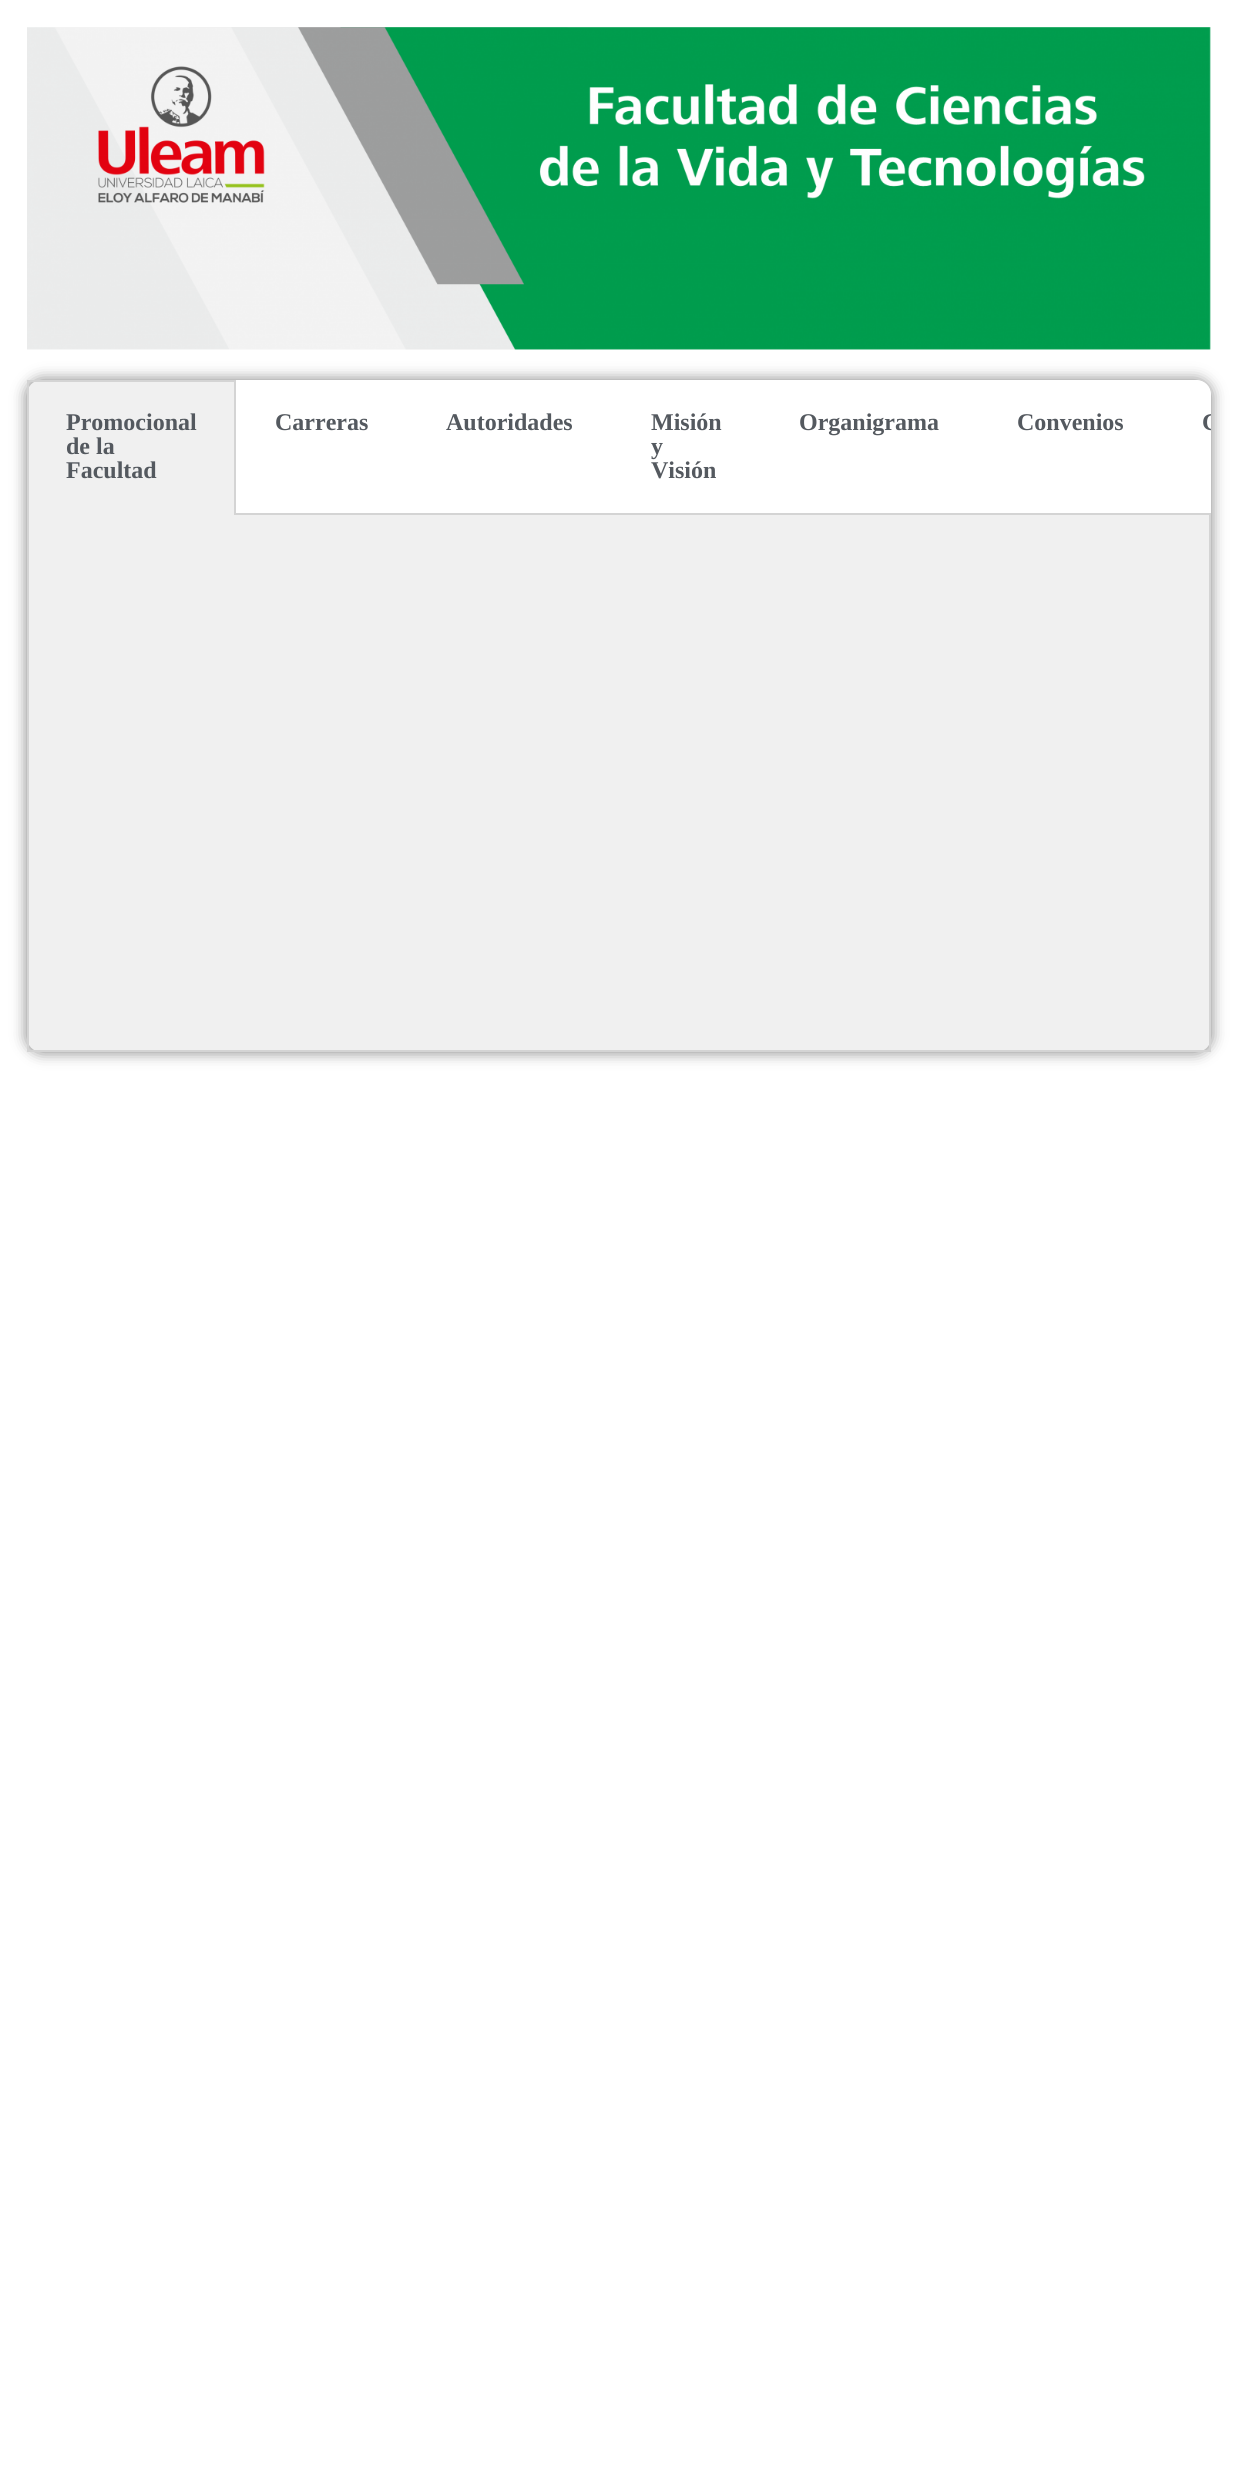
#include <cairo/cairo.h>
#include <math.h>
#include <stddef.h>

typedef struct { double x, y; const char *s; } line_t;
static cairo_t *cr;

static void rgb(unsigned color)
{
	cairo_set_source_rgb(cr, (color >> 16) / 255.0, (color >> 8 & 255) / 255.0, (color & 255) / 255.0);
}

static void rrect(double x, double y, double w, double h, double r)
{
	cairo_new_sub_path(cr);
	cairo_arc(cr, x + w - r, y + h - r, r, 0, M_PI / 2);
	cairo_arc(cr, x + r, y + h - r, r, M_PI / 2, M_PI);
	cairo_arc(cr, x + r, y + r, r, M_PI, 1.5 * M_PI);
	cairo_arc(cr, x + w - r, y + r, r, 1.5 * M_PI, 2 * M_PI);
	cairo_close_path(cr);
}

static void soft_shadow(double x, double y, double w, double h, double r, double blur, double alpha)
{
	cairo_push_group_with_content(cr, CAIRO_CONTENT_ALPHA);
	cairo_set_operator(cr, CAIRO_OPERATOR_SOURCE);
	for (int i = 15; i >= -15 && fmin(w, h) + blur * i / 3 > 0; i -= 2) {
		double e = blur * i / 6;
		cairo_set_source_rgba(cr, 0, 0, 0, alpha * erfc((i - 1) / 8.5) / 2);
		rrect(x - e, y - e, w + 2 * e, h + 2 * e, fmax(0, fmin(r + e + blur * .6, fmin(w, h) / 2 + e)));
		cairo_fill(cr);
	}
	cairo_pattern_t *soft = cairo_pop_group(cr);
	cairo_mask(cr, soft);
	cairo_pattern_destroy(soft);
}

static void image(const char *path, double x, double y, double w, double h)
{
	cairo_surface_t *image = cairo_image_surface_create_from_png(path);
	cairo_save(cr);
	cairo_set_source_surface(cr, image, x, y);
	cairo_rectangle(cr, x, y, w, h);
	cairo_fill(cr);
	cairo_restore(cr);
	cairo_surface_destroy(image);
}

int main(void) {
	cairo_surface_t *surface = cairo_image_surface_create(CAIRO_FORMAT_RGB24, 1237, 2474);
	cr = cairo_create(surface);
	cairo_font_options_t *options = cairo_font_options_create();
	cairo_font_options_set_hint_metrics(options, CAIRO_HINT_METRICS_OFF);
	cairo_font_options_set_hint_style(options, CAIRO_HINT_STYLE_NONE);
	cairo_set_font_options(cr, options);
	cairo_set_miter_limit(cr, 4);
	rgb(0xffffff);
	cairo_paint(cr);
	image("img/1.png", 27, 27, 1184, 323);
	cairo_save(cr);
	cairo_set_fill_rule(cr, CAIRO_FILL_RULE_EVEN_ODD);
	cairo_new_path(cr);
	cairo_move_to(cr, 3, 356);
	cairo_line_to(cr, 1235, 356);
	cairo_line_to(cr, 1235, 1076);
	cairo_line_to(cr, 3, 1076);
	cairo_close_path(cr);
	cairo_move_to(cr, 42, 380);
	cairo_line_to(cr, 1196, 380);
	cairo_curve_to(cr, 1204.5, 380, 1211, 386.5, 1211, 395);
	cairo_line_to(cr, 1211, 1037);
	cairo_curve_to(cr, 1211, 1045.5, 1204.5, 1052, 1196, 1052);
	cairo_line_to(cr, 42, 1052);
	cairo_curve_to(cr, 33.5, 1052, 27, 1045.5, 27, 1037);
	cairo_line_to(cr, 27, 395);
	cairo_curve_to(cr, 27, 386.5, 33.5, 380, 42, 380);
	cairo_close_path(cr);
	cairo_clip(cr);
	rgb(0x000000);
	soft_shadow(27, 380, 1184, 672, 15, 7.5, 0.5);
	cairo_restore(cr);
	cairo_set_source_rgba(cr, 0, 0, 0, 0.06);
	cairo_rectangle(cr, 29, 382, 205, 133);
	cairo_fill(cr);
	rgb(0xd4d4d4);
	cairo_rectangle(cr, 27, 380, 209, 2);
	cairo_fill(cr);
	cairo_rectangle(cr, 234, 380, 2, 135);
	cairo_fill(cr);
	cairo_rectangle(cr, 27, 380, 2, 135);
	cairo_fill(cr);
	cairo_rectangle(cr, 234, 513, 977, 2);
	cairo_fill(cr);
	cairo_set_source_rgba(cr, 0, 0, 0, 0.06);
	cairo_rectangle(cr, 29, 515, 1180, 535);
	cairo_fill(cr);
	rgb(0xd4d4d4);
	cairo_rectangle(cr, 1209, 515, 2, 537);
	cairo_fill(cr);
	cairo_rectangle(cr, 27, 1050, 1184, 2);
	cairo_fill(cr);
	cairo_rectangle(cr, 27, 515, 2, 537);
	cairo_fill(cr);
	cairo_select_font_face(cr, "Liberation Serif", CAIRO_FONT_SLANT_NORMAL, CAIRO_FONT_WEIGHT_BOLD);
	cairo_set_font_size(cr, 24);
	rgb(0x54595f);
	{
		static const line_t items[] = {
			{66, 430, "Promocional"},
			{66, 454, "de la"},
			{66, 478, "Facultad"},
			{275, 430, "Carreras"},
			{446, 430, "Autoridades"},
			{651, 430, "Misión"},
			{651, 454, "y"},
			{651, 478, "Visión"},
			{799, 430, "Organigrama"},
			{1017, 430, "Convenios"},
		};
		for (size_t i = 0; i < sizeof items / sizeof *items; i++) {
			cairo_move_to(cr, items[i].x, items[i].y);
			cairo_show_text(cr, items[i].s);
		}
	}
	cairo_save(cr);
	cairo_rectangle(cr, 27, 380, 1184, 135);
	cairo_clip(cr);
	cairo_move_to(cr, 1202, 430);
	cairo_show_text(cr, "C");
	cairo_restore(cr);
	cairo_surface_write_to_png(surface, "page.png");
	cairo_font_options_destroy(options);
	cairo_destroy(cr);
	cairo_surface_destroy(surface);
	return 0;
}
